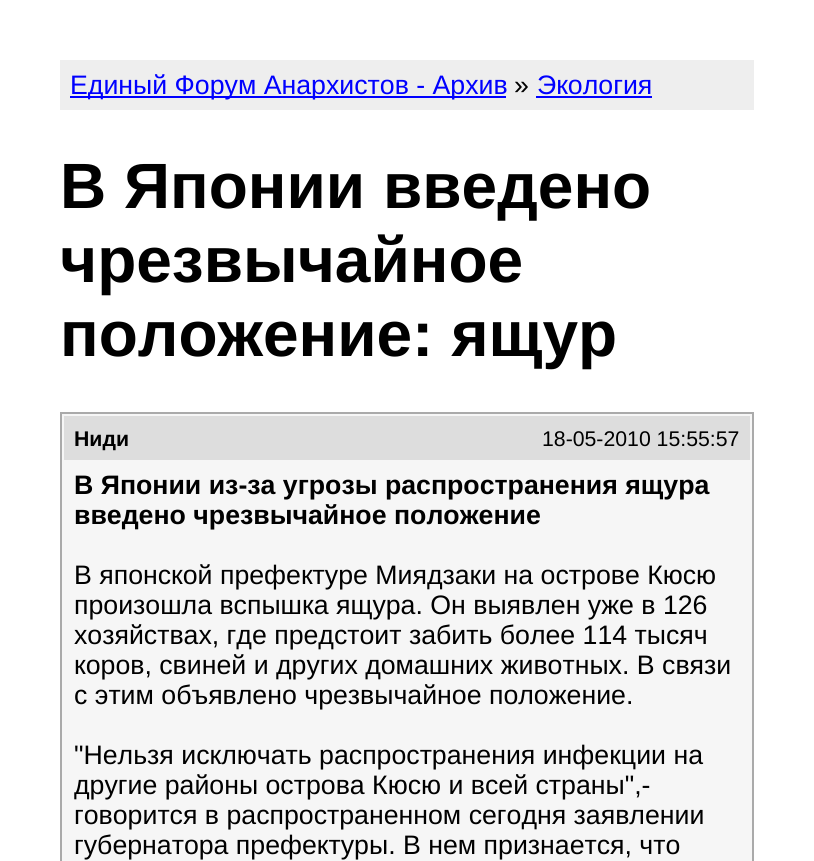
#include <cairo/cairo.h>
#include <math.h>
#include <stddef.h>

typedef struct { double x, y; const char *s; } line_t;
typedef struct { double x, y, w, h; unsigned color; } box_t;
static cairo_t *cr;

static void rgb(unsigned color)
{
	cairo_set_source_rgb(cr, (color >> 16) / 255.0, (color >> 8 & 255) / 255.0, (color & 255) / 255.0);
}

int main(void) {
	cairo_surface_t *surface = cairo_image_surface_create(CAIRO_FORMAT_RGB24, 814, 861);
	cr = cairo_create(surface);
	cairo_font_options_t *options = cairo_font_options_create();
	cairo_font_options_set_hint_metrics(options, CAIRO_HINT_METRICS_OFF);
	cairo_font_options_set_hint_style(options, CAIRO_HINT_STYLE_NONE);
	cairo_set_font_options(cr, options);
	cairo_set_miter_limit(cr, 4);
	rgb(0xffffff);
	cairo_paint(cr);
	{
		static const box_t items[] = {
			{60, 60, 694, 50, 0xeeeeee},
			{70, 96, 436, 2, 0x0000ff},
			{536, 96, 116, 2, 0x0000ff},
		};
		for (size_t i = 0; i < sizeof items / sizeof *items; i++) {
			rgb(items[i].color);
			cairo_rectangle(cr, items[i].x, items[i].y, items[i].w, items[i].h);
			cairo_fill(cr);
		}
	}
	rgb(0xf6f6f6);
	cairo_rectangle(cr, 61, 413, 692, 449);
	cairo_fill_preserve(cr);
	rgb(0xaaaaaa);
	cairo_stroke(cr);
	rgb(0xdddddd);
	cairo_rectangle(cr, 64, 416, 686, 44);
	cairo_fill(cr);
	cairo_select_font_face(cr, "Liberation Sans", CAIRO_FONT_SLANT_NORMAL, CAIRO_FONT_WEIGHT_NORMAL);
	cairo_set_font_size(cr, 26.7);
	rgb(0x0000ff);
	cairo_move_to(cr, 70, 94);
	cairo_show_text(cr, "Единый Форум Анархистов - Архив");
	rgb(0x000000);
	cairo_move_to(cr, 514, 94);
	cairo_show_text(cr, "»");
	rgb(0x0000ff);
	cairo_move_to(cr, 537, 94);
	cairo_show_text(cr, "Экология");
	cairo_select_font_face(cr, "Liberation Sans", CAIRO_FONT_SLANT_NORMAL, CAIRO_FONT_WEIGHT_BOLD);
	cairo_set_font_size(cr, 64);
	rgb(0x000000);
	{
		static const line_t items[] = {
			{60, 208, "В Японии введено"},
			{60, 282, "чрезвычайное"},
			{60, 356, "положение: ящур"},
		};
		for (size_t i = 0; i < sizeof items / sizeof *items; i++) {
			cairo_move_to(cr, items[i].x, items[i].y);
			cairo_show_text(cr, items[i].s);
		}
	}
	cairo_set_font_size(cr, 21.25);
	cairo_move_to(cr, 74, 446);
	cairo_show_text(cr, "Ниди");
	cairo_select_font_face(cr, "Liberation Sans", CAIRO_FONT_SLANT_NORMAL, CAIRO_FONT_WEIGHT_NORMAL);
	cairo_move_to(cr, 542, 446);
	cairo_show_text(cr, "18-05-2010 15:55:57");
	cairo_select_font_face(cr, "Liberation Sans", CAIRO_FONT_SLANT_NORMAL, CAIRO_FONT_WEIGHT_BOLD);
	cairo_set_font_size(cr, 26.7);
	cairo_move_to(cr, 74, 494);
	cairo_show_text(cr, "В Японии из-за угрозы распространения ящура");
	cairo_move_to(cr, 74, 524);
	cairo_show_text(cr, "введено чрезвычайное положение");
	cairo_select_font_face(cr, "Liberation Sans", CAIRO_FONT_SLANT_NORMAL, CAIRO_FONT_WEIGHT_NORMAL);
	{
		static const line_t items[] = {
			{74, 584, "В японской префектуре Миядзаки на острове Кюсю"},
			{74, 614, "произошла вспышка ящура. Он выявлен уже в 126"},
			{74, 644, "хозяйствах, где предстоит забить более 114 тысяч"},
			{74, 674, "коров, свиней и других домашних животных. В связи"},
			{74, 704, "с этим объявлено чрезвычайное положение."},
			{74, 764, "\"Нельзя исключать распространения инфекции на"},
			{74, 794, "другие районы острова Кюсю и всей страны\",-"},
			{74, 824, "говорится в распространенном сегодня заявлении"},
			{74, 854, "губернатора префектуры. В нем признается, что"},
		};
		for (size_t i = 0; i < sizeof items / sizeof *items; i++) {
			cairo_move_to(cr, items[i].x, items[i].y);
			cairo_show_text(cr, items[i].s);
		}
	}
	cairo_surface_write_to_png(surface, "page.png");
	cairo_font_options_destroy(options);
	cairo_destroy(cr);
	cairo_surface_destroy(surface);
	return 0;
}
